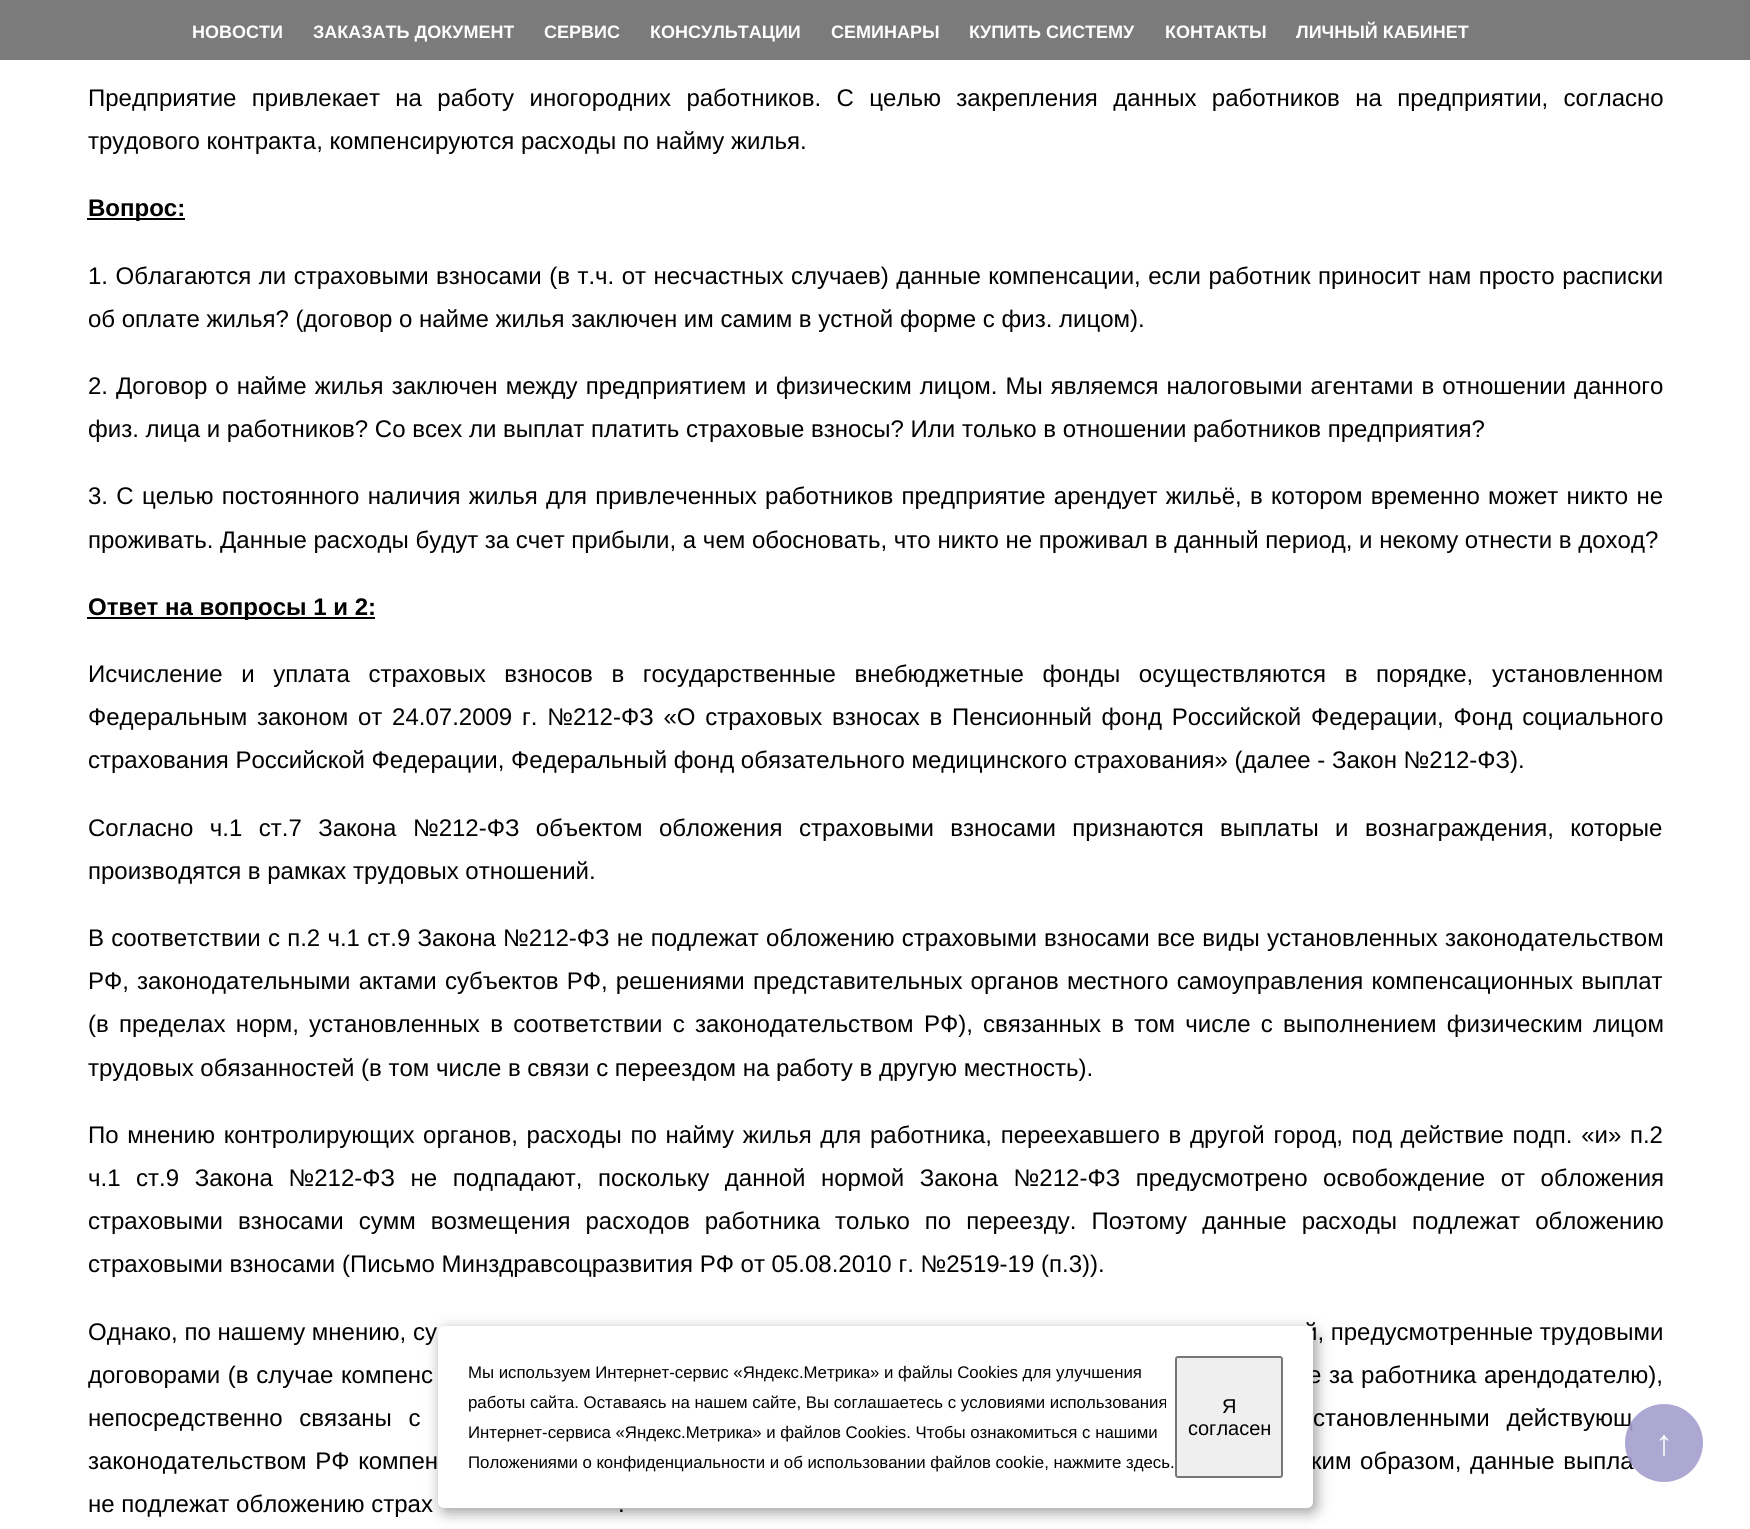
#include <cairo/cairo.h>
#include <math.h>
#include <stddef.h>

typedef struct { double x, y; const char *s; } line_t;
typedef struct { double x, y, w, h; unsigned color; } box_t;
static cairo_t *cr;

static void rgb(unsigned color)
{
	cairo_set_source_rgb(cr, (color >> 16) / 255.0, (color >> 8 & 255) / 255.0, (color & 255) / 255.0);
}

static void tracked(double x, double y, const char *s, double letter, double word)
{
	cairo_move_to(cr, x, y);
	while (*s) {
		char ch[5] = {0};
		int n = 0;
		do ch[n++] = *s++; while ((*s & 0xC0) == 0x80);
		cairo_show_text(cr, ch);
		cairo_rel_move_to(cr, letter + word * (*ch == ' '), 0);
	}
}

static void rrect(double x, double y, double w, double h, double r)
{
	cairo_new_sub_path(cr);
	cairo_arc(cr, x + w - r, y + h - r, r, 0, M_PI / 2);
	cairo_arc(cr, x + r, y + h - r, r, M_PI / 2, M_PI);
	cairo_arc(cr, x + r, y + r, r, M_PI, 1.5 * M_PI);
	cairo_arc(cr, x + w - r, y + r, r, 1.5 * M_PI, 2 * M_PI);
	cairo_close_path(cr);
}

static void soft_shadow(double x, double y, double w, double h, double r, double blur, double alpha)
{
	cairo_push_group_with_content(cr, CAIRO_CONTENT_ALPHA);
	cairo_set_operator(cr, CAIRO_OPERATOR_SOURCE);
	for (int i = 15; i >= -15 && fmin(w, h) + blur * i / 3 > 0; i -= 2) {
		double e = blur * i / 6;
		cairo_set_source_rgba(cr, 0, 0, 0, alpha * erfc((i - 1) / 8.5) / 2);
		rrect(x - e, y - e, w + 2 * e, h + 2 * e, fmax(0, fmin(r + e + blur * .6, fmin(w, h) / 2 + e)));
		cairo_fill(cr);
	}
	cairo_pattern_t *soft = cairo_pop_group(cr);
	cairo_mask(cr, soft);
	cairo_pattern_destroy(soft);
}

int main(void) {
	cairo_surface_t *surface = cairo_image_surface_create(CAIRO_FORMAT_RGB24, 1750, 1529);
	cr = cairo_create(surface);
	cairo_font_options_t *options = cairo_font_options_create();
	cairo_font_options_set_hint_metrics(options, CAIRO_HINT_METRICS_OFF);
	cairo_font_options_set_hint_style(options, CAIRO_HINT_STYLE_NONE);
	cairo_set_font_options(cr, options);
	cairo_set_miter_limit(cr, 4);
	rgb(0xffffff);
	cairo_paint(cr);
	{
		static const box_t items[] = {
			{0, 0, 1750, 60, 0x7b7b7b},
			{87, 218, 98, 2, 0x000000},
			{87, 617, 288, 2, 0x000000},
		};
		for (size_t i = 0; i < sizeof items / sizeof *items; i++) {
			rgb(items[i].color);
			cairo_rectangle(cr, items[i].x, items[i].y, items[i].w, items[i].h);
			cairo_fill(cr);
		}
	}
	rgb(0x000000);
	soft_shadow(441, 1331, 875, 181, 6, 7.5, 0.4);
	cairo_select_font_face(cr, "Liberation Sans", CAIRO_FONT_SLANT_NORMAL, CAIRO_FONT_WEIGHT_BOLD);
	cairo_set_font_size(cr, 18);
	rgb(0xffffff);
	{
		static const line_t items[] = {
			{192, 38, "НОВОСТИ"},
			{313, 38, "ЗАКАЗАТЬ ДОКУМЕНТ"},
			{544, 38, "СЕРВИС"},
			{650, 38, "КОНСУЛЬТАЦИИ"},
			{831, 38, "СЕМИНАРЫ"},
			{969, 38, "КУПИТЬ СИСТЕМУ"},
			{1165, 38, "КОНТАКТЫ"},
			{1296, 38, "ЛИЧНЫЙ КАБИНЕТ"},
		};
		for (size_t i = 0; i < sizeof items / sizeof *items; i++) {
			cairo_move_to(cr, items[i].x, items[i].y);
			cairo_show_text(cr, items[i].s);
		}
	}
	cairo_select_font_face(cr, "Liberation Sans", CAIRO_FONT_SLANT_NORMAL, CAIRO_FONT_WEIGHT_NORMAL);
	cairo_set_font_size(cr, 24);
	rgb(0x000000);
	tracked(88, 106, "Предприятие привлекает на работу иногородних работников. С целью закрепления данных работников на предприятии, согласно", 0, 8.75);
	cairo_move_to(cr, 88, 149);
	cairo_show_text(cr, "трудового контракта, компенсируются расходы по найму жилья.");
	cairo_select_font_face(cr, "Liberation Sans", CAIRO_FONT_SLANT_NORMAL, CAIRO_FONT_WEIGHT_BOLD);
	cairo_move_to(cr, 88, 216);
	cairo_show_text(cr, "Вопрос:");
	cairo_select_font_face(cr, "Liberation Sans", CAIRO_FONT_SLANT_NORMAL, CAIRO_FONT_WEIGHT_NORMAL);
	tracked(88, 284, "1. Облагаются ли страховыми взносами (в т.ч. от несчастных случаев) данные компенсации, если работник приносит нам просто расписки", 0, 0.8);
	cairo_move_to(cr, 88, 327);
	cairo_show_text(cr, "об оплате жилья? (договор о найме жилья заключен им самим в устной форме с физ. лицом).");
	tracked(88, 394, "2. Договор о найме жилья заключен между предприятием и физическим лицом. Мы являемся налоговыми агентами в отношении данного", 0, 1.4);
	cairo_move_to(cr, 88, 437);
	cairo_show_text(cr, "физ. лица и работников? Со всех ли выплат платить страховые взносы? Или только в отношении работников предприятия?");
	tracked(88, 504, "3. С целью постоянного наличия жилья для привлеченных работников предприятие арендует жильё, в котором временно может никто не", 0, 1.6);
	cairo_move_to(cr, 88, 548);
	cairo_show_text(cr, "проживать. Данные расходы будут за счет прибыли, а чем обосновать, что никто не проживал в данный период, и некому отнести в доход?");
	cairo_select_font_face(cr, "Liberation Sans", CAIRO_FONT_SLANT_NORMAL, CAIRO_FONT_WEIGHT_BOLD);
	cairo_move_to(cr, 88, 615);
	cairo_show_text(cr, "Ответ на вопросы 1 и 2:");
	cairo_select_font_face(cr, "Liberation Sans", CAIRO_FONT_SLANT_NORMAL, CAIRO_FONT_WEIGHT_NORMAL);
	tracked(88, 682, "Исчисление и уплата страховых взносов в государственные внебюджетные фонды осуществляются в порядке, установленном", 0, 12);
	tracked(88, 725, "Федеральным законом от 24.07.2009 г. №212-ФЗ «О страховых взносах в Пенсионный фонд Российской Федерации, Фонд социального", 0, 3.1);
	cairo_move_to(cr, 88, 768);
	cairo_show_text(cr, "страхования Российской Федерации, Федеральный фонд обязательного медицинского страхования» (далее - Закон №212-ФЗ).");
	tracked(88, 836, "Согласно ч.1 ст.7 Закона №212-ФЗ объектом обложения страховыми взносами признаются выплаты и вознаграждения, которые", 0, 9.75);
	cairo_move_to(cr, 88, 879);
	cairo_show_text(cr, "производятся в рамках трудовых отношений.");
	tracked(88, 946, "В соответствии с п.2 ч.1 ст.9 Закона №212-ФЗ не подлежат обложению страховыми взносами все виды установленных законодательством", 0, 0.6);
	tracked(88, 989, "РФ, законодательными актами субъектов РФ, решениями представительных органов местного самоуправления компенсационных выплат", 0, 1.5);
	tracked(88, 1032, "(в пределах норм, установленных в соответствии с законодательством РФ), связанных в том числе с выполнением физическим лицом", 0, 3.6);
	cairo_move_to(cr, 88, 1076);
	cairo_show_text(cr, "трудовых обязанностей (в том числе в связи с переездом на работу в другую местность).");
	tracked(88, 1143, "По мнению контролирующих органов, расходы по найму жилья для работника, переехавшего в другой город, под действие подп. «и» п.2", 0, 2);
	tracked(88, 1186, "ч.1 ст.9 Закона №212-ФЗ не подпадают, поскольку данной нормой Закона №212-ФЗ предусмотрено освобождение от обложения", 0, 8.9);
	tracked(88, 1229, "страховыми взносами сумм возмещения расходов работника только по переезду. Поэтому данные расходы подлежат обложению", 0, 8.4);
	{
		static const line_t items[] = {
			{88, 1272, "страховыми взносами (Письмо Минздравсоцразвития РФ от 05.08.2010 г. №2519-19 (п.3))."},
			{88, 1340, "Однако, по нашему мнению, су"},
			{1304, 1340, "й, предусмотренные трудовыми"},
		};
		for (size_t i = 0; i < sizeof items / sizeof *items; i++) {
			cairo_move_to(cr, items[i].x, items[i].y);
			cairo_show_text(cr, items[i].s);
		}
	}
	tracked(88, 1383, "договорами (в случае компенс", 0, 1);
	tracked(1308, 1383, "е за работника арендодателю),", 0, 1);
	tracked(88, 1426, "непосредственно связаны с", 0, 10);
	tracked(1313, 1426, "становленными действующ", 0, 10);
	tracked(88, 1469, "законодательством РФ компен", 0, 2);
	tracked(1311, 1469, "ким образом, данные выпла", 0, 2);
	cairo_move_to(cr, 88, 1512);
	cairo_show_text(cr, "не подлежат обложению страх");
	cairo_move_to(cr, 618, 1512);
	cairo_show_text(cr, ".");
	rgb(0xffffff);
	rrect(438, 1326, 875, 182, 6);
	cairo_fill(cr);
	cairo_set_font_size(cr, 16.8);
	rgb(0x000000);
	{
		static const line_t items[] = {
			{468, 1378, "Мы используем Интернет-сервис «Яндекс.Метрика» и файлы Cookies для улучшения"},
			{468, 1408, "работы сайта. Оставаясь на нашем сайте, Вы соглашаетесь с условиями использования"},
			{468, 1438, "Интернет-сервиса «Яндекс.Метрика» и файлов Cookies. Чтобы ознакомиться с нашими"},
			{468, 1468, "Положениями о конфиденциальности и об использовании файлов cookie, нажмите здесь."},
		};
		for (size_t i = 0; i < sizeof items / sizeof *items; i++) {
			cairo_move_to(cr, items[i].x, items[i].y);
			cairo_show_text(cr, items[i].s);
		}
	}
	rgb(0xefefef);
	rrect(1176, 1357, 106, 120, 2);
	cairo_fill_preserve(cr);
	rgb(0x767676);
	cairo_stroke(cr);
	cairo_set_font_size(cr, 20);
	rgb(0x000000);
	cairo_move_to(cr, 1222, 1413);
	cairo_show_text(cr, "Я");
	cairo_move_to(cr, 1188, 1435);
	cairo_show_text(cr, "согласен");
	cairo_set_source_rgba(cr, 0.643, 0.624, 0.8, 0.9);
	cairo_new_path(cr);
	cairo_arc(cr, 1664, 1443, 39, 0, 2 * M_PI);
	cairo_fill(cr);
	cairo_select_font_face(cr, "Liberation Sans", CAIRO_FONT_SLANT_NORMAL, CAIRO_FONT_WEIGHT_BOLD);
	cairo_set_font_size(cr, 36);
	rgb(0xffffff);
	cairo_move_to(cr, 1655, 1455);
	cairo_show_text(cr, "↑");
	cairo_surface_write_to_png(surface, "page.png");
	cairo_font_options_destroy(options);
	cairo_destroy(cr);
	cairo_surface_destroy(surface);
	return 0;
}
